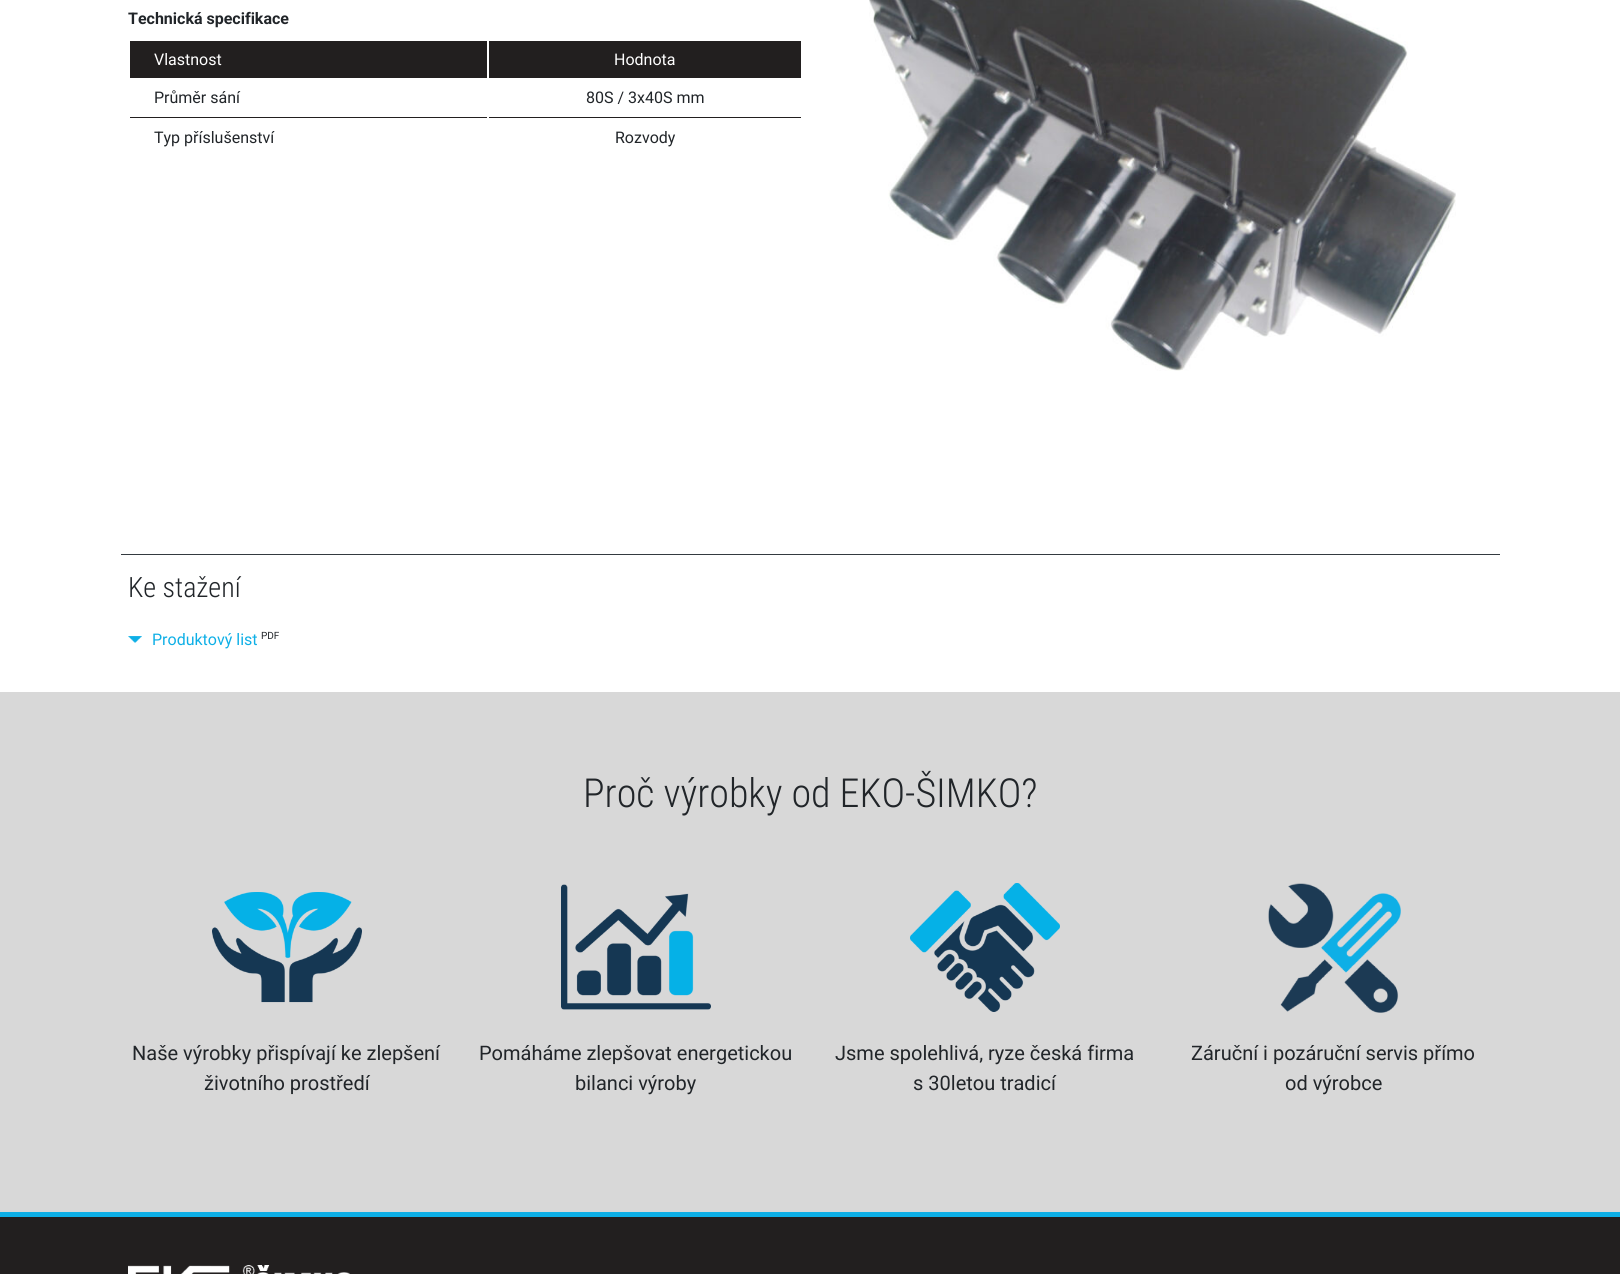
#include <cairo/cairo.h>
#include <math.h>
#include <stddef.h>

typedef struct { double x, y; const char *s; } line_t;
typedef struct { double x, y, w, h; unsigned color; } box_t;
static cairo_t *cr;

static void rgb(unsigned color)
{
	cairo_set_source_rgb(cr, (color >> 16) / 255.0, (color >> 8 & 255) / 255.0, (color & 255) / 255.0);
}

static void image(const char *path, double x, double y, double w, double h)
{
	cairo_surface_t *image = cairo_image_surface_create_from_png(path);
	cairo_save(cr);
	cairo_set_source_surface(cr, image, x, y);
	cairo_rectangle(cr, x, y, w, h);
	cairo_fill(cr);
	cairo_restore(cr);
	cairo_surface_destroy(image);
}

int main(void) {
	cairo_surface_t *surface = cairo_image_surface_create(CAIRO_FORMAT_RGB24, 1620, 1274);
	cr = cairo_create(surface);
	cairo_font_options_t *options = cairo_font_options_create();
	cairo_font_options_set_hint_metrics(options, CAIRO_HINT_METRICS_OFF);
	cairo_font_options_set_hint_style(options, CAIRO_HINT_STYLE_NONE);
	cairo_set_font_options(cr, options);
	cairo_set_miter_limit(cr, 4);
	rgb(0xffffff);
	cairo_paint(cr);
	{
		static const box_t items[] = {
			{130, 41, 357, 37, 0x221f1f},
			{489, 41, 312, 37, 0x221f1f},
			{130, 117, 357, 1, 0x221f1f},
			{489, 117, 312, 1, 0x221f1f},
		};
		for (size_t i = 0; i < sizeof items / sizeof *items; i++) {
			rgb(items[i].color);
			cairo_rectangle(cr, items[i].x, items[i].y, items[i].w, items[i].h);
			cairo_fill(cr);
		}
	}
	image("img/1.png", 869, 0, 587, 371);
	rgb(0x343a40);
	cairo_rectangle(cr, 121, 554, 1379, 1);
	cairo_fill(cr);
	image("img/2.png", 128, 636, 14, 7);
	rgb(0xd8d8d8);
	cairo_rectangle(cr, 0, 692, 1620, 520);
	cairo_fill(cr);
	image("img/3.png", 212, 892, 150, 111);
	image("img/4.png", 561, 884, 150, 126);
	image("img/5.png", 910, 883, 150, 129);
	image("img/6.png", 1268, 883, 133, 130);
	rgb(0x221f1f);
	cairo_rectangle(cr, 0, 1217, 1620, 57);
	cairo_fill(cr);
	rgb(0x0eafe6);
	cairo_rectangle(cr, 0, 1212, 1620, 5);
	cairo_fill(cr);
	image("img/7.png", 128, 1265, 222, 9);
	cairo_select_font_face(cr, "Roboto", CAIRO_FONT_SLANT_NORMAL, CAIRO_FONT_WEIGHT_BOLD);
	cairo_set_font_size(cr, 16);
	rgb(0x212529);
	cairo_move_to(cr, 128, 24);
	cairo_show_text(cr, "Technická specifikace");
	cairo_select_font_face(cr, "Roboto", CAIRO_FONT_SLANT_NORMAL, CAIRO_FONT_WEIGHT_NORMAL);
	rgb(0xffffff);
	cairo_move_to(cr, 154, 65);
	cairo_show_text(cr, "Vlastnost");
	cairo_move_to(cr, 614, 65);
	cairo_show_text(cr, "Hodnota");
	rgb(0x212529);
	{
		static const line_t items[] = {
			{154, 103, "Průměr sání"},
			{586, 103, "80S / 3x40S mm"},
			{154, 143, "Typ příslušenství"},
			{615, 143, "Rozvody"},
		};
		for (size_t i = 0; i < sizeof items / sizeof *items; i++) {
			cairo_move_to(cr, items[i].x, items[i].y);
			cairo_show_text(cr, items[i].s);
		}
	}
	cairo_select_font_face(cr, "Roboto Condensed Light", CAIRO_FONT_SLANT_NORMAL, CAIRO_FONT_WEIGHT_NORMAL);
	cairo_set_font_size(cr, 28);
	cairo_move_to(cr, 128, 597);
	cairo_show_text(cr, "Ke stažení");
	cairo_select_font_face(cr, "Roboto", CAIRO_FONT_SLANT_NORMAL, CAIRO_FONT_WEIGHT_NORMAL);
	cairo_set_font_size(cr, 16);
	rgb(0x0eafe6);
	cairo_move_to(cr, 152, 645);
	cairo_show_text(cr, "Produktový list");
	cairo_set_font_size(cr, 10);
	rgb(0x212529);
	cairo_move_to(cr, 261, 639);
	cairo_show_text(cr, "PDF");
	cairo_select_font_face(cr, "Roboto Condensed Light", CAIRO_FONT_SLANT_NORMAL, CAIRO_FONT_WEIGHT_NORMAL);
	cairo_set_font_size(cr, 40);
	cairo_move_to(cr, 583, 807);
	cairo_show_text(cr, "Proč výrobky od EKO-ŠIMKO?");
	cairo_select_font_face(cr, "Roboto", CAIRO_FONT_SLANT_NORMAL, CAIRO_FONT_WEIGHT_NORMAL);
	cairo_set_font_size(cr, 20);
	{
		static const line_t items[] = {
			{132, 1060, "Naše výrobky přispívají ke zlepšení"},
			{204, 1090, "životního prostředí"},
			{479, 1060, "Pomáháme zlepšovat energetickou"},
			{575, 1090, "bilanci výroby"},
			{835, 1060, "Jsme spolehlivá, ryze česká firma"},
			{913, 1090, "s 30letou tradicí"},
			{1191, 1060, "Záruční i pozáruční servis přímo"},
			{1285, 1090, "od výrobce"},
		};
		for (size_t i = 0; i < sizeof items / sizeof *items; i++) {
			cairo_move_to(cr, items[i].x, items[i].y);
			cairo_show_text(cr, items[i].s);
		}
	}
	cairo_surface_write_to_png(surface, "page.png");
	cairo_font_options_destroy(options);
	cairo_destroy(cr);
	cairo_surface_destroy(surface);
	return 0;
}
